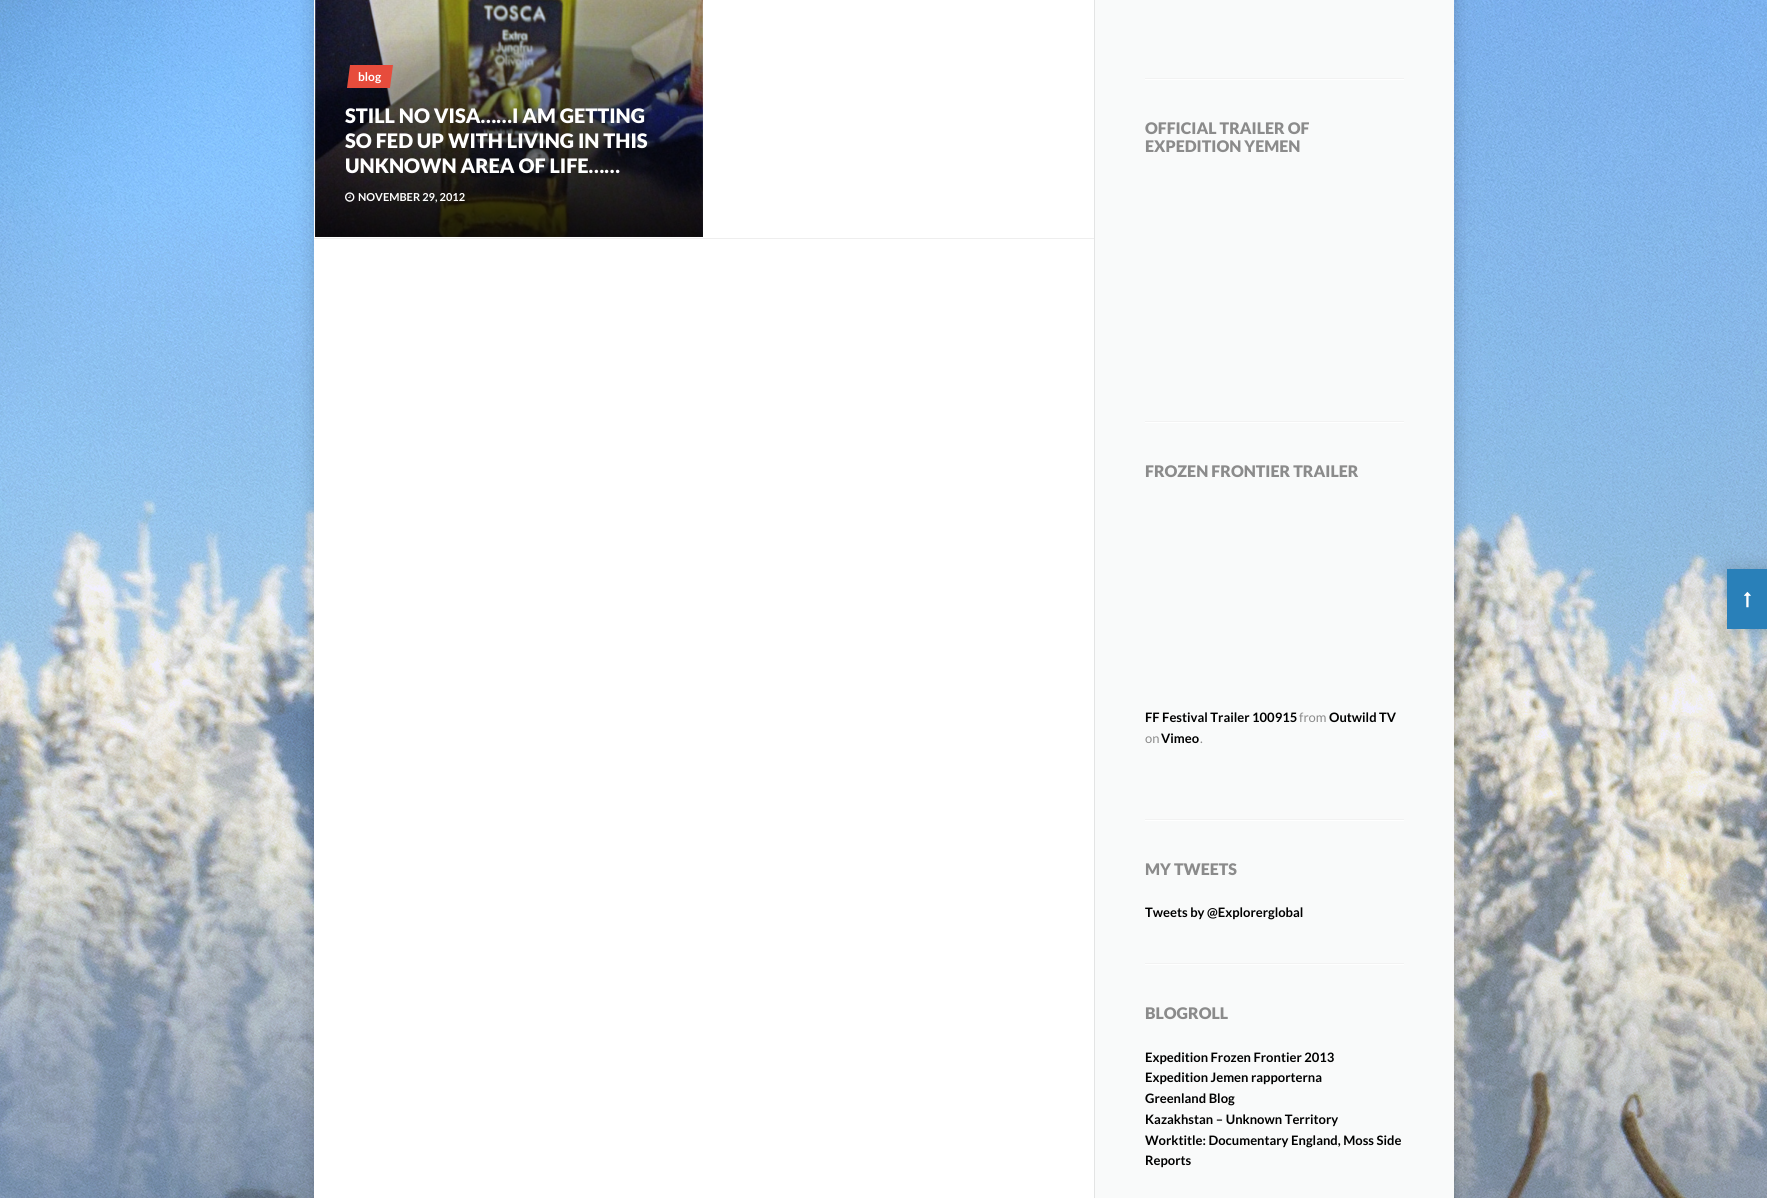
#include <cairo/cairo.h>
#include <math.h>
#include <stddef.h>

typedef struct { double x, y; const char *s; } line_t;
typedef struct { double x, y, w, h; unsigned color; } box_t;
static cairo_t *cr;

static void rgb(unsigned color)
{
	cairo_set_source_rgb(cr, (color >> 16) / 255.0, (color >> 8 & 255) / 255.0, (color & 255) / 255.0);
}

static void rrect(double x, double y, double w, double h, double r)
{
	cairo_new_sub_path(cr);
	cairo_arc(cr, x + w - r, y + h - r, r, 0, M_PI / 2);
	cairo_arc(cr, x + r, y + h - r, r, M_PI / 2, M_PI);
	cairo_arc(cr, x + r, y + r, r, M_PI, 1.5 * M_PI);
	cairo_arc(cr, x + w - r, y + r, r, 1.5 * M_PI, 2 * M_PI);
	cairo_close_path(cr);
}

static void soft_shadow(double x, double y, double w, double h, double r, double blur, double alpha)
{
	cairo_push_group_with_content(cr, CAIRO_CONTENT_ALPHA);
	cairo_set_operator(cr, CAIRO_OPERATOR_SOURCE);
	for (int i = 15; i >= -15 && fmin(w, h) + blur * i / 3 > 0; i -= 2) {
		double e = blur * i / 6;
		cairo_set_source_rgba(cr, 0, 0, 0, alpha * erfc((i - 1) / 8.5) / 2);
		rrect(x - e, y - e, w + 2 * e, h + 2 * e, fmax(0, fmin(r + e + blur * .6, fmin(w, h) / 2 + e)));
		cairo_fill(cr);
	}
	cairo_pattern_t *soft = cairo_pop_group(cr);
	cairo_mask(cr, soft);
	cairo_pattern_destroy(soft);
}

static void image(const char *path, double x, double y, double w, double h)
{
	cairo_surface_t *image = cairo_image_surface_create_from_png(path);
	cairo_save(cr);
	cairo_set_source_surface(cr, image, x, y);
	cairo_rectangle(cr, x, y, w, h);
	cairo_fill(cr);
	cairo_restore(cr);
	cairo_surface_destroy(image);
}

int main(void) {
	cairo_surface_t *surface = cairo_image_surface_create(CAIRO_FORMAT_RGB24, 1767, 1198);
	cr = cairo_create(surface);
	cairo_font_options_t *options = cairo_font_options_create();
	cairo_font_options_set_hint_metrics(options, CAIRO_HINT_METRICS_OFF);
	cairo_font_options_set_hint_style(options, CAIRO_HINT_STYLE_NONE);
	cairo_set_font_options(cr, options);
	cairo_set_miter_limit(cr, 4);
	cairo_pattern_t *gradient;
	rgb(0xffffff);
	cairo_paint(cr);
	image("img/1.png", 0, 0, 1767, 1198);
	rgb(0x000000);
	soft_shadow(314, -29, 1140, 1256, 0, 9.5, 0.2);
	rgb(0xffffff);
	cairo_rectangle(cr, 314, 0, 780, 1198);
	cairo_fill(cr);
	rgb(0xeeeeee);
	cairo_rectangle(cr, 314, 238, 780, 1);
	cairo_fill(cr);
	image("img/2.png", 315, 0, 388, 237);
	gradient = cairo_pattern_create_linear(509, 35, 509, 237);
	cairo_pattern_add_color_stop_rgba(gradient, 0, 0, 0, 0, 0);
	cairo_pattern_add_color_stop_rgba(gradient, 1, 0, 0, 0, 0.8);
	cairo_set_source(cr, gradient);
	cairo_pattern_destroy(gradient);
	cairo_rectangle(cr, 315, 40, 388, 197);
	cairo_fill(cr);
	rgb(0xe74c3c);
	cairo_rectangle(cr, 350, 65, 40, 23);
	cairo_fill(cr);
	image("img/3.png", 345, 192, 10, 10);
	{
		static const box_t items[] = {
			{1095, 0, 359, 1198, 0xf9fafa},
			{1094, 0, 1, 1198, 0xe3e4e4},
			{1145, 78, 259, 1, 0xf2f2f2},
			{1145, 79, 259, 1, 0xffffff},
			{1145, 421, 259, 1, 0xf2f2f2},
			{1145, 422, 259, 1, 0xffffff},
			{1145, 819, 259, 1, 0xf2f2f2},
			{1145, 820, 259, 1, 0xffffff},
			{1145, 963, 259, 1, 0xf2f2f2},
			{1145, 964, 259, 1, 0xffffff},
		};
		for (size_t i = 0; i < sizeof items / sizeof *items; i++) {
			rgb(items[i].color);
			cairo_rectangle(cr, items[i].x, items[i].y, items[i].w, items[i].h);
			cairo_fill(cr);
		}
	}
	rgb(0x000000);
	soft_shadow(1727, 569, 40, 60, 0, 9.5, 0.2);
	rgb(0x2980b9);
	cairo_rectangle(cr, 1727, 569, 40, 60);
	cairo_fill(cr);
	image("img/4.png", 1744, 591, 7, 17);
	cairo_select_font_face(cr, "Lato", CAIRO_FONT_SLANT_NORMAL, CAIRO_FONT_WEIGHT_BOLD);
	cairo_set_font_size(cr, 12);
	rgb(0xffffff);
	cairo_move_to(cr, 358, 81);
	cairo_show_text(cr, "blog");
	rgb(0xe74c3c);
	cairo_new_path(cr);
	cairo_move_to(cr, 350, 88);
	cairo_line_to(cr, 347, 88);
	cairo_line_to(cr, 350, 65);
	cairo_close_path(cr);
	cairo_move_to(cr, 390, 65);
	cairo_line_to(cr, 393, 65);
	cairo_line_to(cr, 390, 88);
	cairo_close_path(cr);
	cairo_fill(cr);
	cairo_select_font_face(cr, "Lato Black", CAIRO_FONT_SLANT_NORMAL, CAIRO_FONT_WEIGHT_NORMAL);
	cairo_set_font_size(cr, 20);
	rgb(0xffffff);
	{
		static const line_t items[] = {
			{345, 123, "STILL NO VISA……I AM GETTING"},
			{345, 148, "SO FED UP WITH LIVING IN THIS"},
			{345, 173, "UNKNOWN AREA OF LIFE……"},
		};
		for (size_t i = 0; i < sizeof items / sizeof *items; i++) {
			cairo_move_to(cr, items[i].x, items[i].y);
			cairo_show_text(cr, items[i].s);
		}
	}
	cairo_select_font_face(cr, "Lato", CAIRO_FONT_SLANT_NORMAL, CAIRO_FONT_WEIGHT_BOLD);
	cairo_set_font_size(cr, 11);
	cairo_move_to(cr, 358, 201);
	cairo_show_text(cr, "NOVEMBER 29, 2012");
	cairo_select_font_face(cr, "Lato Black", CAIRO_FONT_SLANT_NORMAL, CAIRO_FONT_WEIGHT_NORMAL);
	cairo_set_font_size(cr, 16);
	rgb(0x8b8b8b);
	{
		static const line_t items[] = {
			{1145, 134, "OFFICIAL TRAILER OF"},
			{1145, 152, "EXPEDITION YEMEN"},
			{1145, 477, "FROZEN FRONTIER TRAILER"},
		};
		for (size_t i = 0; i < sizeof items / sizeof *items; i++) {
			cairo_move_to(cr, items[i].x, items[i].y);
			cairo_show_text(cr, items[i].s);
		}
	}
	cairo_select_font_face(cr, "Lato", CAIRO_FONT_SLANT_NORMAL, CAIRO_FONT_WEIGHT_BOLD);
	cairo_set_font_size(cr, 13);
	rgb(0x000000);
	cairo_move_to(cr, 1145, 722);
	cairo_show_text(cr, "FF Festival Trailer 100915");
	cairo_select_font_face(cr, "Lato", CAIRO_FONT_SLANT_NORMAL, CAIRO_FONT_WEIGHT_NORMAL);
	rgb(0x8b8b8b);
	cairo_move_to(cr, 1299, 722);
	cairo_show_text(cr, "from");
	cairo_select_font_face(cr, "Lato", CAIRO_FONT_SLANT_NORMAL, CAIRO_FONT_WEIGHT_BOLD);
	rgb(0x000000);
	cairo_move_to(cr, 1329, 722);
	cairo_show_text(cr, "Outwild TV");
	cairo_select_font_face(cr, "Lato", CAIRO_FONT_SLANT_NORMAL, CAIRO_FONT_WEIGHT_NORMAL);
	rgb(0x8b8b8b);
	cairo_move_to(cr, 1145, 743);
	cairo_show_text(cr, "on");
	cairo_select_font_face(cr, "Lato", CAIRO_FONT_SLANT_NORMAL, CAIRO_FONT_WEIGHT_BOLD);
	rgb(0x000000);
	cairo_move_to(cr, 1161, 743);
	cairo_show_text(cr, "Vimeo");
	cairo_select_font_face(cr, "Lato", CAIRO_FONT_SLANT_NORMAL, CAIRO_FONT_WEIGHT_NORMAL);
	rgb(0x8b8b8b);
	cairo_move_to(cr, 1200, 743);
	cairo_show_text(cr, ".");
	cairo_select_font_face(cr, "Lato Black", CAIRO_FONT_SLANT_NORMAL, CAIRO_FONT_WEIGHT_NORMAL);
	cairo_set_font_size(cr, 16);
	cairo_move_to(cr, 1145, 875);
	cairo_show_text(cr, "MY TWEETS");
	cairo_select_font_face(cr, "Lato", CAIRO_FONT_SLANT_NORMAL, CAIRO_FONT_WEIGHT_BOLD);
	cairo_set_font_size(cr, 13);
	rgb(0x000000);
	cairo_move_to(cr, 1145, 917);
	cairo_show_text(cr, "Tweets by @Explorerglobal");
	cairo_select_font_face(cr, "Lato Black", CAIRO_FONT_SLANT_NORMAL, CAIRO_FONT_WEIGHT_NORMAL);
	cairo_set_font_size(cr, 16);
	rgb(0x8b8b8b);
	cairo_move_to(cr, 1145, 1019);
	cairo_show_text(cr, "BLOGROLL");
	cairo_select_font_face(cr, "Lato", CAIRO_FONT_SLANT_NORMAL, CAIRO_FONT_WEIGHT_BOLD);
	cairo_set_font_size(cr, 13);
	rgb(0x000000);
	{
		static const line_t items[] = {
			{1145, 1062, "Expedition Frozen Frontier 2013"},
			{1145, 1082, "Expedition Jemen rapporterna"},
			{1145, 1103, "Greenland Blog"},
			{1145, 1124, "Kazakhstan – Unknown Territory"},
			{1145, 1145, "Worktitle: Documentary England, Moss Side"},
			{1145, 1165, "Reports"},
		};
		for (size_t i = 0; i < sizeof items / sizeof *items; i++) {
			cairo_move_to(cr, items[i].x, items[i].y);
			cairo_show_text(cr, items[i].s);
		}
	}
	cairo_surface_write_to_png(surface, "page.png");
	cairo_font_options_destroy(options);
	cairo_destroy(cr);
	cairo_surface_destroy(surface);
	return 0;
}
